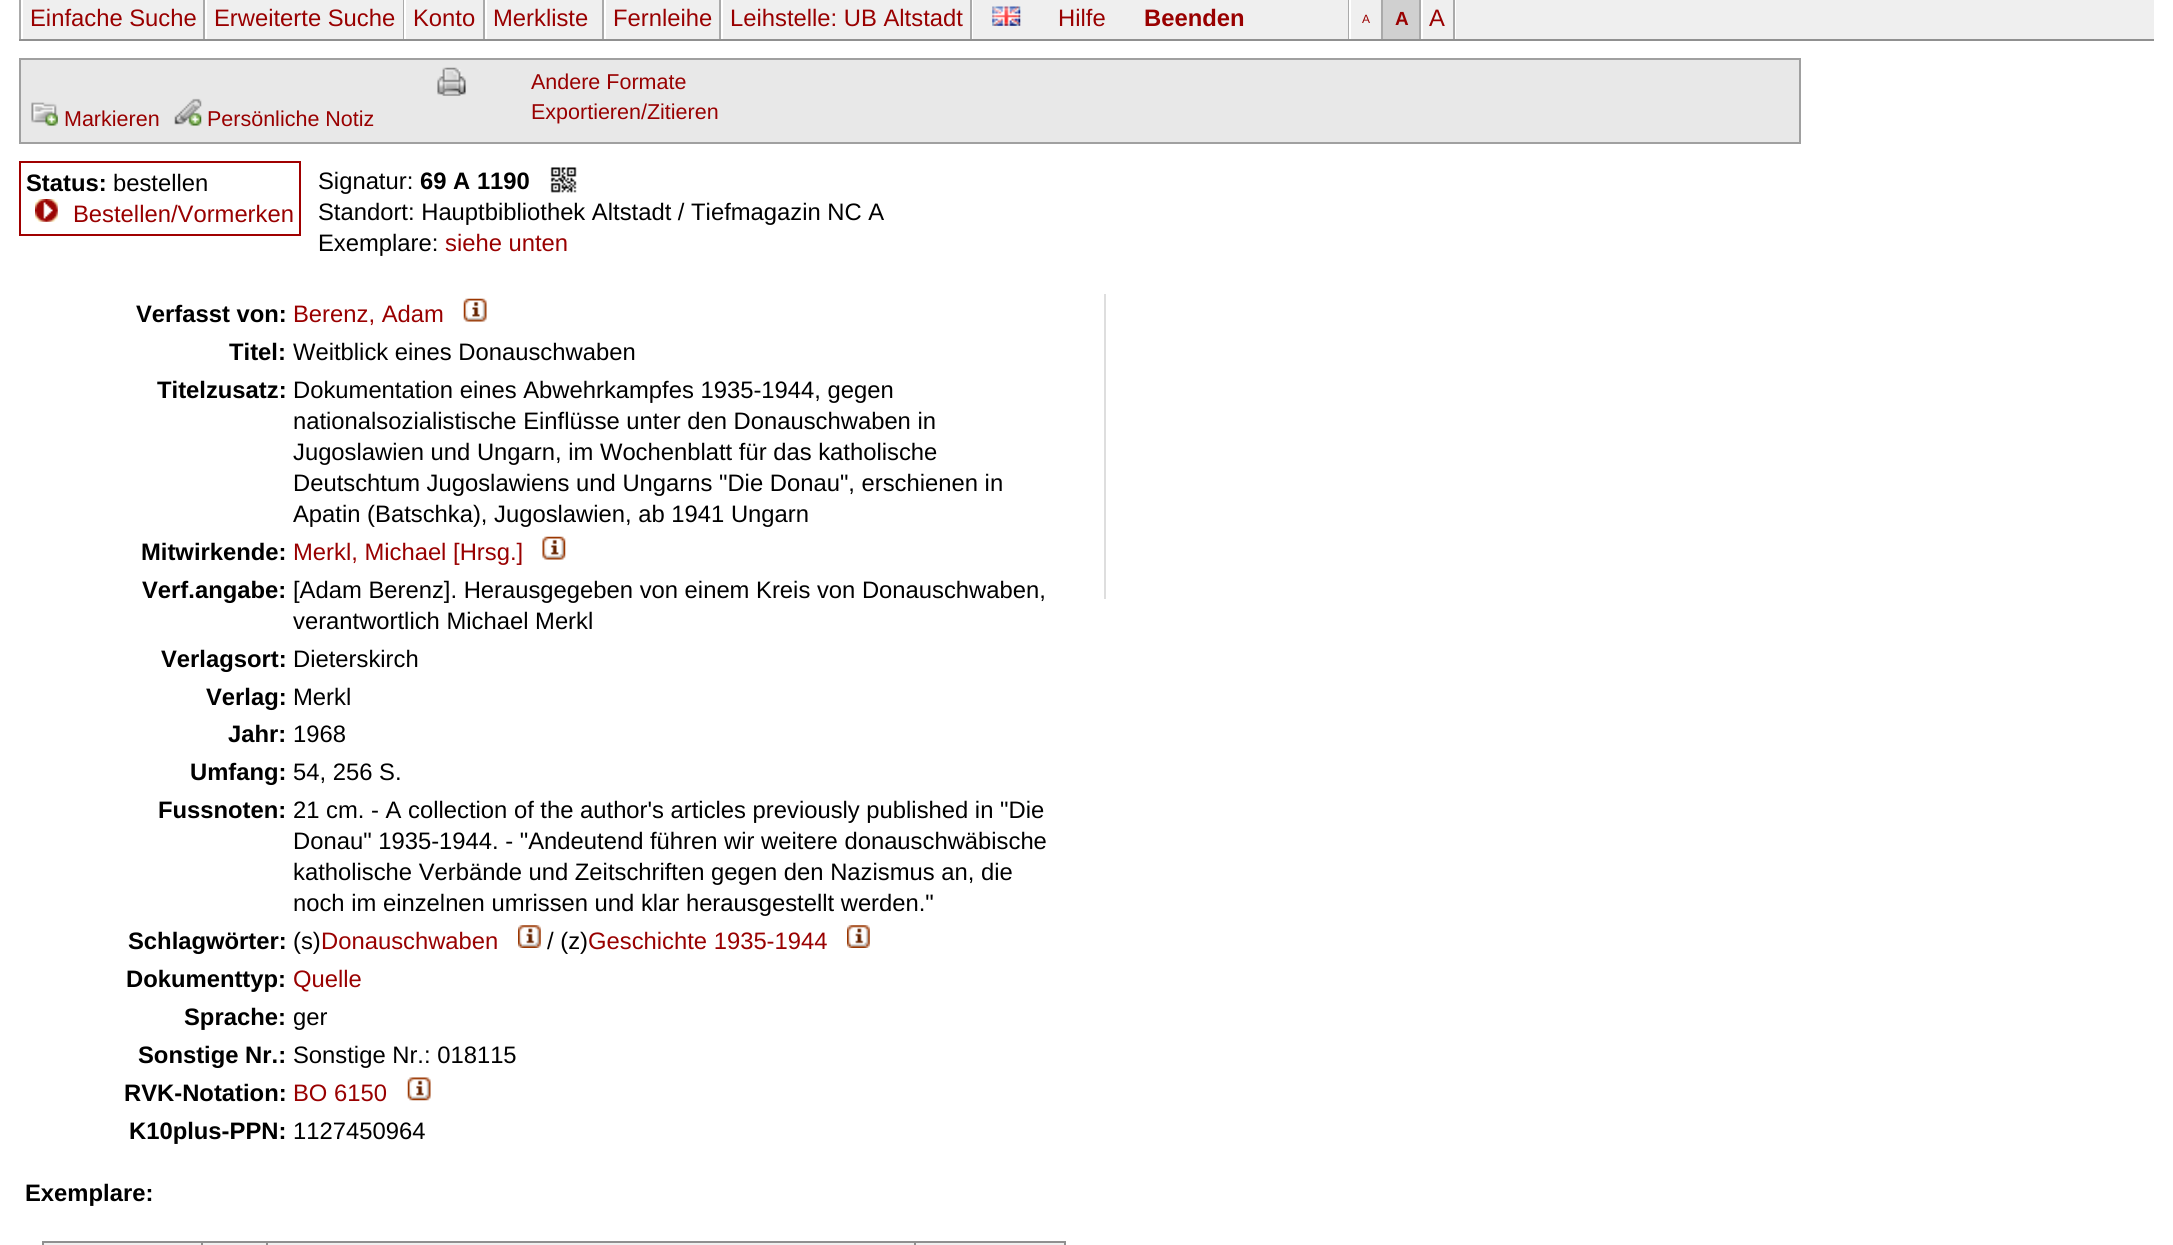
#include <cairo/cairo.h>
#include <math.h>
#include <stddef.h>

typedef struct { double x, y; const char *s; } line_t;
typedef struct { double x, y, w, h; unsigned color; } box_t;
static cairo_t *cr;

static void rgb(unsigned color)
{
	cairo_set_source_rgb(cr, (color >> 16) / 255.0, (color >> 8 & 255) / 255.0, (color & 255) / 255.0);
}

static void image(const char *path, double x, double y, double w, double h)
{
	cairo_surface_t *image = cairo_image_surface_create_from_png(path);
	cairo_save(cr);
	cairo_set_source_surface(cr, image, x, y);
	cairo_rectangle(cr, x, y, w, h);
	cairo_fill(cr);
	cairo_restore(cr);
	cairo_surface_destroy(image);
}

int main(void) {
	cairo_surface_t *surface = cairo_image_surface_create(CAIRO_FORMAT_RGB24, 2173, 1245);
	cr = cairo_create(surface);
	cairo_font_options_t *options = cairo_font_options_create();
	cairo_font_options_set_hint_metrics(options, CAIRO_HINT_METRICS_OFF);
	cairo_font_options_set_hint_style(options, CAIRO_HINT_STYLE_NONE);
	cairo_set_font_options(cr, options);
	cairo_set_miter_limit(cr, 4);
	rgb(0xffffff);
	cairo_paint(cr);
	{
		static const box_t items[] = {
			{23, 0, 2131, 39, 0xefefef},
			{19, 39, 2135, 2, 0x909090},
			{972, 0, 1, 39, 0xffffff},
			{19, 0, 2, 39, 0xaaaaaa},
			{203, 0, 2, 39, 0xaaaaaa},
			{403, 0, 1, 39, 0xaaaaaa},
			{205, 0, 2, 39, 0xffffff},
			{483, 0, 2, 39, 0xaaaaaa},
			{404, 0, 2, 39, 0xffffff},
			{602, 0, 2, 39, 0xaaaaaa},
			{485, 0, 2, 39, 0xffffff},
			{719, 0, 2, 39, 0xaaaaaa},
			{604, 0, 2, 39, 0xffffff},
			{970, 0, 2, 39, 0xaaaaaa},
			{721, 0, 2, 39, 0xffffff},
		};
		for (size_t i = 0; i < sizeof items / sizeof *items; i++) {
			rgb(items[i].color);
			cairo_rectangle(cr, items[i].x, items[i].y, items[i].w, items[i].h);
			cairo_fill(cr);
		}
	}
	image("img/1.png", 992, 6, 29, 20);
	{
		static const box_t items[] = {
			{1455, 0, 1, 39, 0xffffff},
			{1348, 0, 1, 39, 0xaaaaaa},
			{1381, 0, 2, 39, 0xaaaaaa},
			{1349, 0, 2, 39, 0xffffff},
			{1383, 0, 36, 39, 0xd0d0d0},
			{1419, 0, 2, 39, 0xaaaaaa},
			{1453, 0, 2, 39, 0xaaaaaa},
			{1421, 0, 2, 39, 0xffffff},
		};
		for (size_t i = 0; i < sizeof items / sizeof *items; i++) {
			rgb(items[i].color);
			cairo_rectangle(cr, items[i].x, items[i].y, items[i].w, items[i].h);
			cairo_fill(cr);
		}
	}
	rgb(0xe8e8e8);
	cairo_rectangle(cr, 20, 59, 1780, 84);
	cairo_fill_preserve(cr);
	rgb(0xa0a0a0);
	cairo_stroke(cr);
	image("img/2.png", 31, 102, 27, 24);
	image("img/3.png", 174, 98, 28, 28);
	image("img/4.png", 437, 67, 29, 29);
	cairo_rectangle(cr, 20, 162, 280, 73);
	rgb(0xa00000);
	cairo_stroke(cr);
	image("img/5.png", 35, 199, 23, 23);
	image("img/6.png", 550, 167, 27, 26);
	image("img/7.png", 463, 298, 24, 24);
	image("img/8.png", 542, 536, 24, 24);
	image("img/9.png", 518, 925, 23, 23);
	image("img/10.png", 847, 925, 23, 23);
	image("img/11.png", 407, 1077, 24, 24);
	{
		static const box_t items[] = {
			{1104, 294, 2, 305, 0xdedede},
			{42, 1241, 1024, 2, 0x909090},
			{44, 1243, 1022, 2, 0xf0f0f0},
			{1064, 1241, 2, 4, 0x909090},
			{42, 1241, 2, 4, 0x909090},
			{201, 1241, 2, 4, 0x909090},
			{266, 1241, 2, 4, 0x909090},
			{914, 1241, 2, 4, 0x909090},
		};
		for (size_t i = 0; i < sizeof items / sizeof *items; i++) {
			rgb(items[i].color);
			cairo_rectangle(cr, items[i].x, items[i].y, items[i].w, items[i].h);
			cairo_fill(cr);
		}
	}
	cairo_select_font_face(cr, "Liberation Sans", CAIRO_FONT_SLANT_NORMAL, CAIRO_FONT_WEIGHT_NORMAL);
	cairo_set_font_size(cr, 23.8);
	rgb(0x990000);
	{
		static const line_t items[] = {
			{30, 26, "Einfache Suche"},
			{214, 26, "Erweiterte Suche"},
			{413, 26, "Konto"},
			{493, 26, "Merkliste"},
			{613, 26, "Fernleihe"},
			{730, 26, "Leihstelle: UB Altstadt"},
			{1058, 26, "Hilfe"},
		};
		for (size_t i = 0; i < sizeof items / sizeof *items; i++) {
			cairo_move_to(cr, items[i].x, items[i].y);
			cairo_show_text(cr, items[i].s);
		}
	}
	cairo_select_font_face(cr, "Liberation Sans", CAIRO_FONT_SLANT_NORMAL, CAIRO_FONT_WEIGHT_BOLD);
	cairo_move_to(cr, 1144, 26);
	cairo_show_text(cr, "Beenden");
	cairo_select_font_face(cr, "Liberation Sans", CAIRO_FONT_SLANT_NORMAL, CAIRO_FONT_WEIGHT_NORMAL);
	cairo_set_font_size(cr, 12);
	cairo_move_to(cr, 1362, 23);
	cairo_show_text(cr, "A");
	cairo_select_font_face(cr, "Liberation Sans", CAIRO_FONT_SLANT_NORMAL, CAIRO_FONT_WEIGHT_BOLD);
	cairo_set_font_size(cr, 19);
	cairo_move_to(cr, 1395, 25);
	cairo_show_text(cr, "A");
	cairo_select_font_face(cr, "Liberation Sans", CAIRO_FONT_SLANT_NORMAL, CAIRO_FONT_WEIGHT_NORMAL);
	cairo_set_font_size(cr, 23.8);
	cairo_move_to(cr, 1429, 26);
	cairo_show_text(cr, "A");
	cairo_set_font_size(cr, 21.5);
	{
		static const line_t items[] = {
			{64, 126, "Markieren"},
			{207, 126, "Persönliche Notiz"},
			{531, 89, "Andere Formate"},
			{531, 119, "Exportieren/Zitieren"},
		};
		for (size_t i = 0; i < sizeof items / sizeof *items; i++) {
			cairo_move_to(cr, items[i].x, items[i].y);
			cairo_show_text(cr, items[i].s);
		}
	}
	cairo_select_font_face(cr, "Liberation Sans", CAIRO_FONT_SLANT_NORMAL, CAIRO_FONT_WEIGHT_BOLD);
	cairo_set_font_size(cr, 23.8);
	rgb(0x000000);
	cairo_move_to(cr, 26, 191);
	cairo_show_text(cr, "Status:");
	cairo_select_font_face(cr, "Liberation Sans", CAIRO_FONT_SLANT_NORMAL, CAIRO_FONT_WEIGHT_NORMAL);
	cairo_move_to(cr, 113, 191);
	cairo_show_text(cr, "bestellen");
	rgb(0x990000);
	cairo_move_to(cr, 73, 222);
	cairo_show_text(cr, "Bestellen/Vormerken");
	rgb(0x000000);
	cairo_move_to(cr, 318, 189);
	cairo_show_text(cr, "Signatur:");
	cairo_select_font_face(cr, "Liberation Sans", CAIRO_FONT_SLANT_NORMAL, CAIRO_FONT_WEIGHT_BOLD);
	cairo_move_to(cr, 420, 189);
	cairo_show_text(cr, "69 A 1190");
	cairo_select_font_face(cr, "Liberation Sans", CAIRO_FONT_SLANT_NORMAL, CAIRO_FONT_WEIGHT_NORMAL);
	cairo_move_to(cr, 318, 220);
	cairo_show_text(cr, "Standort: Hauptbibliothek Altstadt / Tiefmagazin NC A");
	cairo_move_to(cr, 318, 251);
	cairo_show_text(cr, "Exemplare:");
	rgb(0x990000);
	cairo_move_to(cr, 445, 251);
	cairo_show_text(cr, "siehe unten");
	cairo_select_font_face(cr, "Liberation Sans", CAIRO_FONT_SLANT_NORMAL, CAIRO_FONT_WEIGHT_BOLD);
	rgb(0x000000);
	cairo_move_to(cr, 136, 322);
	cairo_show_text(cr, "Verfasst von:");
	cairo_select_font_face(cr, "Liberation Sans", CAIRO_FONT_SLANT_NORMAL, CAIRO_FONT_WEIGHT_NORMAL);
	rgb(0x990000);
	cairo_move_to(cr, 293, 322);
	cairo_show_text(cr, "Berenz, Adam");
	cairo_select_font_face(cr, "Liberation Sans", CAIRO_FONT_SLANT_NORMAL, CAIRO_FONT_WEIGHT_BOLD);
	rgb(0x000000);
	cairo_move_to(cr, 229, 360);
	cairo_show_text(cr, "Titel:");
	cairo_select_font_face(cr, "Liberation Sans", CAIRO_FONT_SLANT_NORMAL, CAIRO_FONT_WEIGHT_NORMAL);
	cairo_move_to(cr, 293, 360);
	cairo_show_text(cr, "Weitblick eines Donauschwaben");
	cairo_select_font_face(cr, "Liberation Sans", CAIRO_FONT_SLANT_NORMAL, CAIRO_FONT_WEIGHT_BOLD);
	cairo_move_to(cr, 157, 398);
	cairo_show_text(cr, "Titelzusatz:");
	cairo_select_font_face(cr, "Liberation Sans", CAIRO_FONT_SLANT_NORMAL, CAIRO_FONT_WEIGHT_NORMAL);
	{
		static const line_t items[] = {
			{293, 398, "Dokumentation eines Abwehrkampfes 1935-1944, gegen"},
			{293, 429, "nationalsozialistische Einflüsse unter den Donauschwaben in"},
			{293, 460, "Jugoslawien und Ungarn, im Wochenblatt für das katholische"},
			{293, 491, "Deutschtum Jugoslawiens und Ungarns \"Die Donau\", erschienen in"},
			{293, 522, "Apatin (Batschka), Jugoslawien, ab 1941 Ungarn"},
		};
		for (size_t i = 0; i < sizeof items / sizeof *items; i++) {
			cairo_move_to(cr, items[i].x, items[i].y);
			cairo_show_text(cr, items[i].s);
		}
	}
	cairo_select_font_face(cr, "Liberation Sans", CAIRO_FONT_SLANT_NORMAL, CAIRO_FONT_WEIGHT_BOLD);
	cairo_move_to(cr, 141, 560);
	cairo_show_text(cr, "Mitwirkende:");
	cairo_select_font_face(cr, "Liberation Sans", CAIRO_FONT_SLANT_NORMAL, CAIRO_FONT_WEIGHT_NORMAL);
	rgb(0x990000);
	cairo_move_to(cr, 293, 560);
	cairo_show_text(cr, "Merkl, Michael [Hrsg.]");
	cairo_select_font_face(cr, "Liberation Sans", CAIRO_FONT_SLANT_NORMAL, CAIRO_FONT_WEIGHT_BOLD);
	rgb(0x000000);
	cairo_move_to(cr, 142, 598);
	cairo_show_text(cr, "Verf.angabe:");
	cairo_select_font_face(cr, "Liberation Sans", CAIRO_FONT_SLANT_NORMAL, CAIRO_FONT_WEIGHT_NORMAL);
	cairo_move_to(cr, 293, 598);
	cairo_show_text(cr, "[Adam Berenz]. Herausgegeben von einem Kreis von Donauschwaben,");
	cairo_move_to(cr, 293, 629);
	cairo_show_text(cr, "verantwortlich Michael Merkl");
	cairo_select_font_face(cr, "Liberation Sans", CAIRO_FONT_SLANT_NORMAL, CAIRO_FONT_WEIGHT_BOLD);
	cairo_move_to(cr, 161, 667);
	cairo_show_text(cr, "Verlagsort:");
	cairo_select_font_face(cr, "Liberation Sans", CAIRO_FONT_SLANT_NORMAL, CAIRO_FONT_WEIGHT_NORMAL);
	cairo_move_to(cr, 293, 667);
	cairo_show_text(cr, "Dieterskirch");
	cairo_select_font_face(cr, "Liberation Sans", CAIRO_FONT_SLANT_NORMAL, CAIRO_FONT_WEIGHT_BOLD);
	cairo_move_to(cr, 206, 705);
	cairo_show_text(cr, "Verlag:");
	cairo_select_font_face(cr, "Liberation Sans", CAIRO_FONT_SLANT_NORMAL, CAIRO_FONT_WEIGHT_NORMAL);
	cairo_move_to(cr, 293, 705);
	cairo_show_text(cr, "Merkl");
	cairo_select_font_face(cr, "Liberation Sans", CAIRO_FONT_SLANT_NORMAL, CAIRO_FONT_WEIGHT_BOLD);
	cairo_move_to(cr, 228, 742);
	cairo_show_text(cr, "Jahr:");
	cairo_select_font_face(cr, "Liberation Sans", CAIRO_FONT_SLANT_NORMAL, CAIRO_FONT_WEIGHT_NORMAL);
	cairo_move_to(cr, 293, 742);
	cairo_show_text(cr, "1968");
	cairo_select_font_face(cr, "Liberation Sans", CAIRO_FONT_SLANT_NORMAL, CAIRO_FONT_WEIGHT_BOLD);
	cairo_move_to(cr, 190, 780);
	cairo_show_text(cr, "Umfang:");
	cairo_select_font_face(cr, "Liberation Sans", CAIRO_FONT_SLANT_NORMAL, CAIRO_FONT_WEIGHT_NORMAL);
	cairo_move_to(cr, 293, 780);
	cairo_show_text(cr, "54, 256 S.");
	cairo_select_font_face(cr, "Liberation Sans", CAIRO_FONT_SLANT_NORMAL, CAIRO_FONT_WEIGHT_BOLD);
	cairo_move_to(cr, 158, 818);
	cairo_show_text(cr, "Fussnoten:");
	cairo_select_font_face(cr, "Liberation Sans", CAIRO_FONT_SLANT_NORMAL, CAIRO_FONT_WEIGHT_NORMAL);
	{
		static const line_t items[] = {
			{293, 818, "21 cm. - A collection of the author's articles previously published in \"Die"},
			{293, 849, "Donau\" 1935-1944. - \"Andeutend führen wir weitere donauschwäbische"},
			{293, 880, "katholische Verbände und Zeitschriften gegen den Nazismus an, die"},
			{293, 911, "noch im einzelnen umrissen und klar herausgestellt werden.\""},
		};
		for (size_t i = 0; i < sizeof items / sizeof *items; i++) {
			cairo_move_to(cr, items[i].x, items[i].y);
			cairo_show_text(cr, items[i].s);
		}
	}
	cairo_select_font_face(cr, "Liberation Sans", CAIRO_FONT_SLANT_NORMAL, CAIRO_FONT_WEIGHT_BOLD);
	cairo_move_to(cr, 128, 949);
	cairo_show_text(cr, "Schlagwörter:");
	cairo_select_font_face(cr, "Liberation Sans", CAIRO_FONT_SLANT_NORMAL, CAIRO_FONT_WEIGHT_NORMAL);
	cairo_move_to(cr, 293, 949);
	cairo_show_text(cr, "(s)");
	rgb(0x990000);
	cairo_move_to(cr, 321, 949);
	cairo_show_text(cr, "Donauschwaben");
	rgb(0x000000);
	cairo_move_to(cr, 547, 949);
	cairo_show_text(cr, "/ (z)");
	rgb(0x990000);
	cairo_move_to(cr, 588, 949);
	cairo_show_text(cr, "Geschichte 1935-1944");
	cairo_select_font_face(cr, "Liberation Sans", CAIRO_FONT_SLANT_NORMAL, CAIRO_FONT_WEIGHT_BOLD);
	rgb(0x000000);
	cairo_move_to(cr, 126, 987);
	cairo_show_text(cr, "Dokumenttyp:");
	cairo_select_font_face(cr, "Liberation Sans", CAIRO_FONT_SLANT_NORMAL, CAIRO_FONT_WEIGHT_NORMAL);
	rgb(0x990000);
	cairo_move_to(cr, 293, 987);
	cairo_show_text(cr, "Quelle");
	cairo_select_font_face(cr, "Liberation Sans", CAIRO_FONT_SLANT_NORMAL, CAIRO_FONT_WEIGHT_BOLD);
	rgb(0x000000);
	cairo_move_to(cr, 184, 1025);
	cairo_show_text(cr, "Sprache:");
	cairo_select_font_face(cr, "Liberation Sans", CAIRO_FONT_SLANT_NORMAL, CAIRO_FONT_WEIGHT_NORMAL);
	cairo_move_to(cr, 293, 1025);
	cairo_show_text(cr, "ger");
	cairo_select_font_face(cr, "Liberation Sans", CAIRO_FONT_SLANT_NORMAL, CAIRO_FONT_WEIGHT_BOLD);
	cairo_move_to(cr, 138, 1063);
	cairo_show_text(cr, "Sonstige Nr.:");
	cairo_select_font_face(cr, "Liberation Sans", CAIRO_FONT_SLANT_NORMAL, CAIRO_FONT_WEIGHT_NORMAL);
	cairo_move_to(cr, 293, 1063);
	cairo_show_text(cr, "Sonstige Nr.: 018115");
	cairo_select_font_face(cr, "Liberation Sans", CAIRO_FONT_SLANT_NORMAL, CAIRO_FONT_WEIGHT_BOLD);
	cairo_move_to(cr, 124, 1101);
	cairo_show_text(cr, "RVK-Notation:");
	cairo_select_font_face(cr, "Liberation Sans", CAIRO_FONT_SLANT_NORMAL, CAIRO_FONT_WEIGHT_NORMAL);
	rgb(0x990000);
	cairo_move_to(cr, 293, 1101);
	cairo_show_text(cr, "BO 6150");
	cairo_select_font_face(cr, "Liberation Sans", CAIRO_FONT_SLANT_NORMAL, CAIRO_FONT_WEIGHT_BOLD);
	rgb(0x000000);
	cairo_move_to(cr, 129, 1139);
	cairo_show_text(cr, "K10plus-PPN:");
	cairo_select_font_face(cr, "Liberation Sans", CAIRO_FONT_SLANT_NORMAL, CAIRO_FONT_WEIGHT_NORMAL);
	cairo_move_to(cr, 293, 1139);
	cairo_show_text(cr, "1127450964");
	cairo_select_font_face(cr, "Liberation Sans", CAIRO_FONT_SLANT_NORMAL, CAIRO_FONT_WEIGHT_BOLD);
	cairo_move_to(cr, 25, 1201);
	cairo_show_text(cr, "Exemplare:");
	cairo_surface_write_to_png(surface, "page.png");
	cairo_font_options_destroy(options);
	cairo_destroy(cr);
	cairo_surface_destroy(surface);
	return 0;
}
